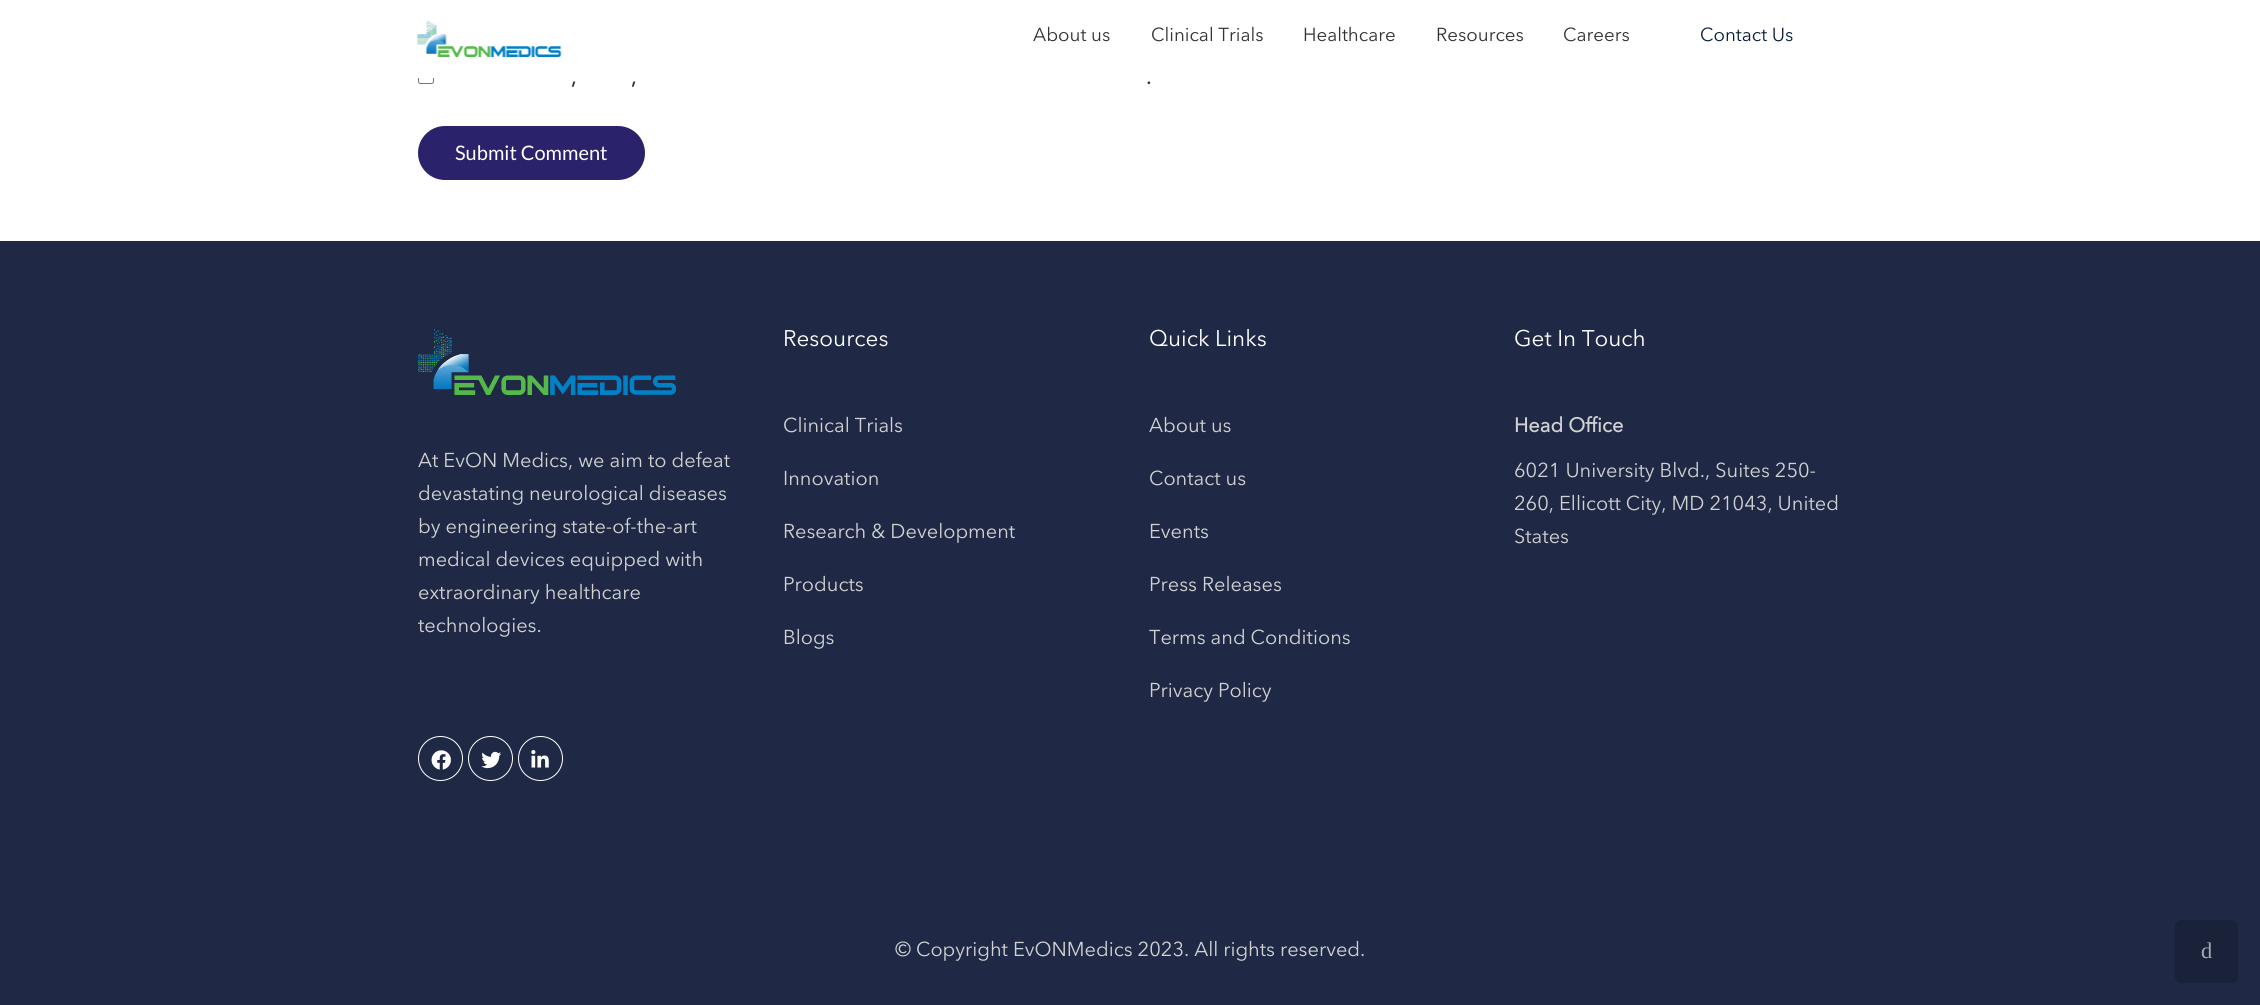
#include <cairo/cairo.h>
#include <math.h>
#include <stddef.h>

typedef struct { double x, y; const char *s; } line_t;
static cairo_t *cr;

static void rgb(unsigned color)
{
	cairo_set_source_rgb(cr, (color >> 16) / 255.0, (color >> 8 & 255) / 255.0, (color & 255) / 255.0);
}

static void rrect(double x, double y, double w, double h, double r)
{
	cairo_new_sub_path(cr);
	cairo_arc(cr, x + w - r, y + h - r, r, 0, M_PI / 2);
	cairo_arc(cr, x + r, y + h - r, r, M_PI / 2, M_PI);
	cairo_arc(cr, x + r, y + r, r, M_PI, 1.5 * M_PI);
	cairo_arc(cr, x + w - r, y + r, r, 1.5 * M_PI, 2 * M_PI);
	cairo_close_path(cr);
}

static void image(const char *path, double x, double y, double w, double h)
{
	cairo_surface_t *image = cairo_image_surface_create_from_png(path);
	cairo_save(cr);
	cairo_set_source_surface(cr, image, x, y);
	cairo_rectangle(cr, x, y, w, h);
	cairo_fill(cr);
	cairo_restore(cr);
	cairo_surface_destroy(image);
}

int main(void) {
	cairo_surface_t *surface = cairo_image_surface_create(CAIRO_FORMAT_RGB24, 2260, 1005);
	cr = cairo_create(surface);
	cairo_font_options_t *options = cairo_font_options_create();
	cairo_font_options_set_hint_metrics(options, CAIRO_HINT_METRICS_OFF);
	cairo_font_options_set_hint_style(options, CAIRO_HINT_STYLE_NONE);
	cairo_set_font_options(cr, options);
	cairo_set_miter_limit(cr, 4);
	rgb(0xffffff);
	cairo_paint(cr);
	rrect(418.5, 68.5, 15, 15, 2);
	rgb(0x767676);
	cairo_set_line_width(cr, 1);
	cairo_stroke(cr);
	rgb(0xffffff);
	cairo_rectangle(cr, 418, 68, 16, 10);
	cairo_fill(cr);
	image("img/1.png", 417, 20, 145, 37);
	rgb(0x2a236c);
	rrect(418, 126, 227, 54, 27);
	cairo_fill(cr);
	rgb(0x1f2945);
	cairo_rectangle(cr, 0, 241, 2260, 764);
	cairo_fill(cr);
	image("img/2.png", 418, 329, 258, 66);
	cairo_arc(cr, 440.5, 758.5, 22, 0, 2 * M_PI);
	rgb(0xffffff);
	cairo_stroke(cr);
	image("img/3.png", 431, 750, 20, 20);
	cairo_arc(cr, 490.5, 758.5, 22, 0, 2 * M_PI);
	cairo_stroke(cr);
	image("img/4.png", 481, 751, 21, 18);
	cairo_arc(cr, 540.5, 758.5, 22, 0, 2 * M_PI);
	cairo_stroke(cr);
	image("img/5.png", 531, 750, 18, 18);
	rgb(0x192239);
	rrect(2175, 920, 63, 63, 6);
	cairo_fill(cr);
	cairo_select_font_face(cr, "Avenir Next", CAIRO_FONT_SLANT_NORMAL, CAIRO_FONT_WEIGHT_NORMAL);
	cairo_set_font_size(cr, 18.75);
	rgb(0x333333);
	{
		static const line_t items[] = {
			{1033, 41, "About us"},
			{1151, 41, "Clinical Trials"},
			{1303, 41, "Healthcare"},
			{1436, 41, "Resources"},
			{1563, 41, "Careers"},
		};
		for (size_t i = 0; i < sizeof items / sizeof *items; i++) {
			cairo_move_to(cr, items[i].x, items[i].y);
			cairo_show_text(cr, items[i].s);
		}
	}
	rgb(0x091f38);
	cairo_move_to(cr, 1700, 41);
	cairo_show_text(cr, "Contact Us");
	cairo_select_font_face(cr, "Avenir Next", CAIRO_FONT_SLANT_NORMAL, CAIRO_FONT_WEIGHT_BOLD);
	cairo_set_font_size(cr, 20);
	rgb(0x333333);
	{
		static const line_t items[] = {
			{571, 84, ","},
			{631, 84, ","},
			{1146, 84, "."},
		};
		for (size_t i = 0; i < sizeof items / sizeof *items; i++) {
			cairo_move_to(cr, items[i].x, items[i].y);
			cairo_show_text(cr, items[i].s);
		}
	}
	cairo_select_font_face(cr, "Lato", CAIRO_FONT_SLANT_NORMAL, CAIRO_FONT_WEIGHT_NORMAL);
	rgb(0xffffff);
	cairo_move_to(cr, 455, 160);
	cairo_show_text(cr, "Submit Comment");
	cairo_select_font_face(cr, "Avenir Next", CAIRO_FONT_SLANT_NORMAL, CAIRO_FONT_WEIGHT_NORMAL);
	rgb(0xd2d2d2);
	{
		static const line_t items[] = {
			{418, 467, "At EvON Medics, we aim to defeat"},
			{418, 500, "devastating neurological diseases"},
			{418, 533, "by engineering state-of-the-art"},
			{418, 566, "medical devices equipped with"},
			{418, 599, "extraordinary healthcare"},
			{418, 632, "technologies."},
		};
		for (size_t i = 0; i < sizeof items / sizeof *items; i++) {
			cairo_move_to(cr, items[i].x, items[i].y);
			cairo_show_text(cr, items[i].s);
		}
	}
	cairo_set_font_size(cr, 22.5);
	rgb(0xffffff);
	cairo_move_to(cr, 783, 346);
	cairo_show_text(cr, "Resources");
	cairo_set_font_size(cr, 20);
	rgb(0xd2d2d2);
	{
		static const line_t items[] = {
			{783, 432, "Clinical Trials"},
			{783, 485, "Innovation"},
			{783, 538, "Research & Development"},
			{783, 591, "Products"},
			{783, 644, "Blogs"},
		};
		for (size_t i = 0; i < sizeof items / sizeof *items; i++) {
			cairo_move_to(cr, items[i].x, items[i].y);
			cairo_show_text(cr, items[i].s);
		}
	}
	cairo_set_font_size(cr, 22.5);
	rgb(0xffffff);
	cairo_move_to(cr, 1149, 346);
	cairo_show_text(cr, "Quick Links");
	cairo_set_font_size(cr, 20);
	rgb(0xd2d2d2);
	{
		static const line_t items[] = {
			{1149, 432, "About us"},
			{1149, 485, "Contact us"},
			{1149, 538, "Events"},
			{1149, 591, "Press Releases"},
			{1149, 644, "Terms and Conditions"},
			{1149, 697, "Privacy Policy"},
		};
		for (size_t i = 0; i < sizeof items / sizeof *items; i++) {
			cairo_move_to(cr, items[i].x, items[i].y);
			cairo_show_text(cr, items[i].s);
		}
	}
	cairo_set_font_size(cr, 22.5);
	rgb(0xffffff);
	cairo_move_to(cr, 1514, 346);
	cairo_show_text(cr, "Get In Touch");
	cairo_select_font_face(cr, "Avenir Next", CAIRO_FONT_SLANT_NORMAL, CAIRO_FONT_WEIGHT_BOLD);
	cairo_set_font_size(cr, 20);
	rgb(0xd2d2d2);
	cairo_move_to(cr, 1514, 432);
	cairo_show_text(cr, "Head Office");
	cairo_select_font_face(cr, "Avenir Next", CAIRO_FONT_SLANT_NORMAL, CAIRO_FONT_WEIGHT_NORMAL);
	{
		static const line_t items[] = {
			{1514, 477, "6021 University Blvd., Suites 250-"},
			{1514, 510, "260, Ellicott City, MD 21043, United"},
			{1514, 543, "States"},
			{895, 956, "© Copyright EvONMedics 2023. All rights reserved."},
		};
		for (size_t i = 0; i < sizeof items / sizeof *items; i++) {
			cairo_move_to(cr, items[i].x, items[i].y);
			cairo_show_text(cr, items[i].s);
		}
	}
	cairo_select_font_face(cr, "Liberation Serif", CAIRO_FONT_SLANT_NORMAL, CAIRO_FONT_WEIGHT_NORMAL);
	cairo_set_font_size(cr, 22.5);
	rgb(0xa5a9b5);
	cairo_move_to(cr, 2201, 958);
	cairo_show_text(cr, "d");
	cairo_surface_write_to_png(surface, "page.png");
	cairo_font_options_destroy(options);
	cairo_destroy(cr);
	cairo_surface_destroy(surface);
	return 0;
}
